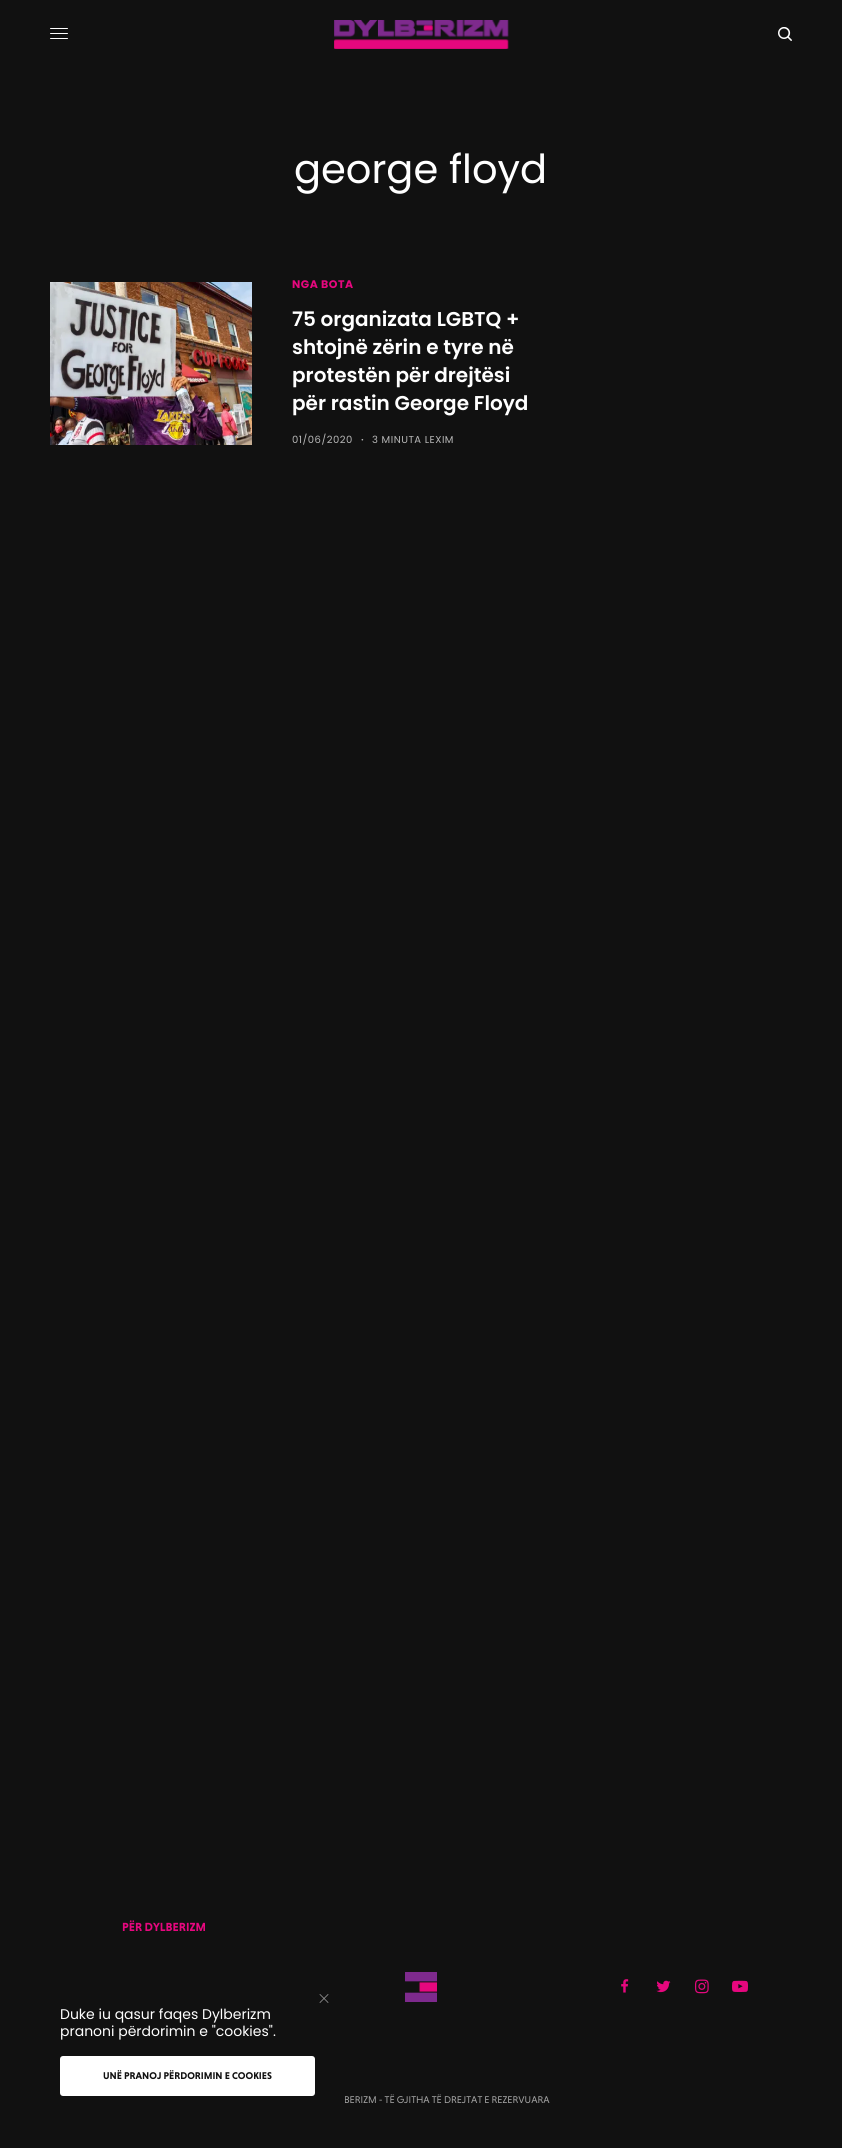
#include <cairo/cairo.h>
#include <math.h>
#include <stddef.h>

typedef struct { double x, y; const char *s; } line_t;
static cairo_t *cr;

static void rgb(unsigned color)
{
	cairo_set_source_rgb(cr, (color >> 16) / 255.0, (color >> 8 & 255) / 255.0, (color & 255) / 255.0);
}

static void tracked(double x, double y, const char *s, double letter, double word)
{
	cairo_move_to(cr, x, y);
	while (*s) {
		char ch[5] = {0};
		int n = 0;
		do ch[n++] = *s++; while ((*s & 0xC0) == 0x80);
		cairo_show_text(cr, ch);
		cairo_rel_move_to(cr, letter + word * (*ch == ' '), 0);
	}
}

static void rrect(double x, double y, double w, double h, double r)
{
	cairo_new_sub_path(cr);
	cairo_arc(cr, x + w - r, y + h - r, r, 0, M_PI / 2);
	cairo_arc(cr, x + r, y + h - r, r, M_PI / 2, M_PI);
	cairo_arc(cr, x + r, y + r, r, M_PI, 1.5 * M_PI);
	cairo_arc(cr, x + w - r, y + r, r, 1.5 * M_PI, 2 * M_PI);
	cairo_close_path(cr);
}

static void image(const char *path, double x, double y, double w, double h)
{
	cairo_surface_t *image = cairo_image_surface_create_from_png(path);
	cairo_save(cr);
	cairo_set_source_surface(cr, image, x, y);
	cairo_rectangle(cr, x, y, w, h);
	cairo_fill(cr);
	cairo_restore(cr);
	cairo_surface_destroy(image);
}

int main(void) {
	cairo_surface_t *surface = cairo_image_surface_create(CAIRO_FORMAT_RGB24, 842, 2148);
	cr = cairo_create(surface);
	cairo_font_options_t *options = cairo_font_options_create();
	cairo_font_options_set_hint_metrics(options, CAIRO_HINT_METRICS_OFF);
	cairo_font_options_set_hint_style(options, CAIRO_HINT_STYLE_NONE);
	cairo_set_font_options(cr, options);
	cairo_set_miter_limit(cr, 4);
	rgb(0x111111);
	cairo_paint(cr);
	rgb(0xffffff);
	rrect(50, 28, 18, 1, 0.5);
	cairo_fill(cr);
	rrect(50, 33, 18, 1, 0.5);
	cairo_fill(cr);
	rrect(50, 38, 18, 1, 0.5);
	cairo_fill(cr);
	image("img/1.png", 334, 20, 175, 29);
	image("img/2.png", 778, 27, 14, 14);
	image("img/3.png", 50, 282, 202, 163);
	image("img/4.png", 405, 1972, 32, 30);
	image("img/5.png", 621, 1979, 8, 14);
	image("img/6.png", 656, 1980, 15, 13);
	image("img/7.png", 695, 1979, 14, 15);
	image("img/8.png", 732, 1980, 16, 12);
	cairo_select_font_face(cr, "Poppins", CAIRO_FONT_SLANT_NORMAL, CAIRO_FONT_WEIGHT_NORMAL);
	cairo_set_font_size(cr, 40);
	cairo_move_to(cr, 294, 183);
	cairo_show_text(cr, "george floyd");
	cairo_select_font_face(cr, "Poppins", CAIRO_FONT_SLANT_NORMAL, CAIRO_FONT_WEIGHT_BOLD);
	cairo_set_font_size(cr, 11);
	rgb(0xe6077e);
	tracked(292, 288, "NGA BOTA", 0.5, 0);
	cairo_select_font_face(cr, "Poppins SemiBold", CAIRO_FONT_SLANT_NORMAL, CAIRO_FONT_WEIGHT_NORMAL);
	cairo_set_font_size(cr, 20);
	rgb(0xffffff);
	{
		static const line_t items[] = {
			{292, 326, "75 organizata LGBTQ +"},
			{292, 354, "shtojnë zërin e tyre në"},
			{292, 382, "protestën për drejtësi"},
			{292, 410, "për rastin George Floyd"},
		};
		for (size_t i = 0; i < sizeof items / sizeof *items; i++) {
			cairo_move_to(cr, items[i].x, items[i].y);
			cairo_show_text(cr, items[i].s);
		}
	}
	cairo_select_font_face(cr, "Poppins", CAIRO_FONT_SLANT_NORMAL, CAIRO_FONT_WEIGHT_NORMAL);
	cairo_set_font_size(cr, 10);
	rgb(0xb8b8b8);
	tracked(292, 443, "01/06/2020", 0.5, 0);
	cairo_select_font_face(cr, "Poppins SemiBold", CAIRO_FONT_SLANT_NORMAL, CAIRO_FONT_WEIGHT_NORMAL);
	tracked(361, 443, "·", 0.5, 0);
	cairo_select_font_face(cr, "Poppins", CAIRO_FONT_SLANT_NORMAL, CAIRO_FONT_WEIGHT_NORMAL);
	tracked(372, 443, "3 MINUTA LEXIM", 0.5, 0);
	cairo_select_font_face(cr, "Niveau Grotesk", CAIRO_FONT_SLANT_NORMAL, CAIRO_FONT_WEIGHT_BOLD);
	cairo_set_font_size(cr, 12);
	rgb(0xe6077e);
	cairo_move_to(cr, 122, 1931);
	cairo_show_text(cr, "PËR DYLBERIZM");
	cairo_select_font_face(cr, "Niveau Grotesk", CAIRO_FONT_SLANT_NORMAL, CAIRO_FONT_WEIGHT_NORMAL);
	cairo_set_font_size(cr, 10);
	rgb(0xa0a0a0);
	tracked(344, 2103, "BERIZM - TË GJITHA TË DREJTAT E REZERVUARA", 0, -0.25);
	rgb(0x111111);
	rrect(30, 1976, 315, 150, 3);
	cairo_fill(cr);
	rgb(0xa3a3a3);
	cairo_new_path(cr);
	cairo_move_to(cr, 320, 1994);
	cairo_line_to(cr, 328.5, 2002.5);
	cairo_line_to(cr, 328, 2003);
	cairo_line_to(cr, 319.5, 1994.5);
	cairo_close_path(cr);
	cairo_fill(cr);
	cairo_new_path(cr);
	cairo_move_to(cr, 319.5, 2002.5);
	cairo_line_to(cr, 328, 1994);
	cairo_line_to(cr, 328.5, 1994.5);
	cairo_line_to(cr, 320, 2003);
	cairo_close_path(cr);
	cairo_fill(cr);
	cairo_select_font_face(cr, "Poppins", CAIRO_FONT_SLANT_NORMAL, CAIRO_FONT_WEIGHT_NORMAL);
	cairo_set_font_size(cr, 14);
	rgb(0xffffff);
	cairo_move_to(cr, 60, 2019);
	cairo_show_text(cr, "Duke iu qasur faqes Dylberizm");
	cairo_move_to(cr, 60, 2036);
	cairo_show_text(cr, "pranoni përdorimin e \"cookies\".");
	rrect(60, 2056, 255, 40, 3);
	cairo_fill(cr);
	cairo_select_font_face(cr, "Niveau Grotesk", CAIRO_FONT_SLANT_NORMAL, CAIRO_FONT_WEIGHT_BOLD);
	cairo_set_font_size(cr, 10);
	rgb(0x111111);
	cairo_move_to(cr, 103, 2079);
	cairo_show_text(cr, "UNË PRANOJ PËRDORIMIN E COOKIES");
	cairo_surface_write_to_png(surface, "page.png");
	cairo_font_options_destroy(options);
	cairo_destroy(cr);
	cairo_surface_destroy(surface);
	return 0;
}
